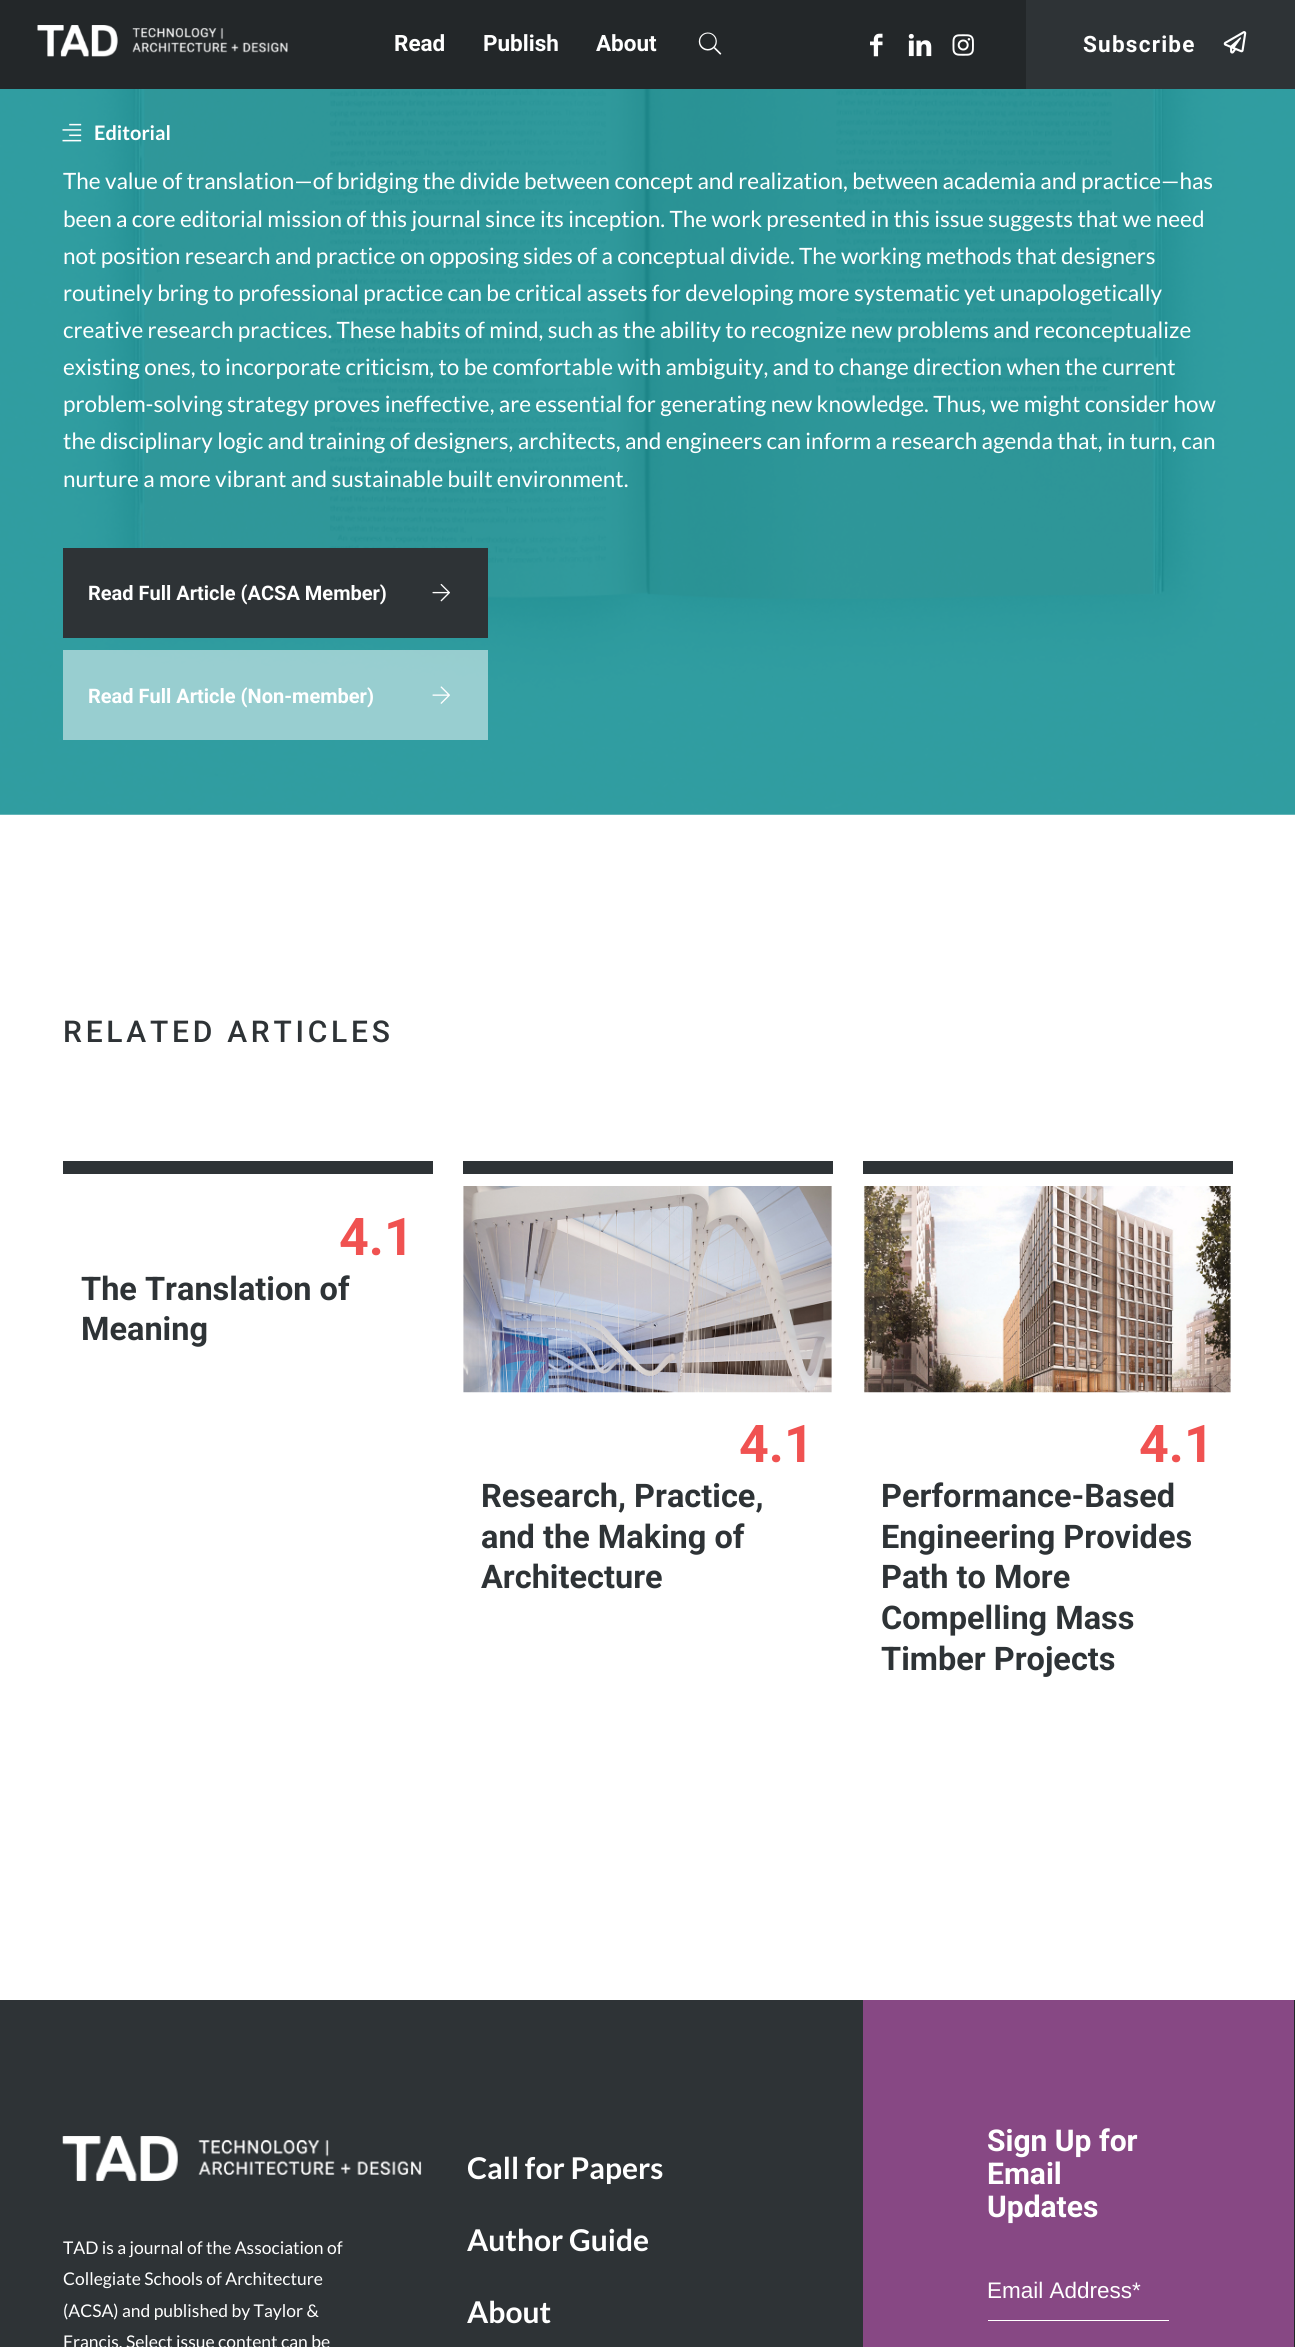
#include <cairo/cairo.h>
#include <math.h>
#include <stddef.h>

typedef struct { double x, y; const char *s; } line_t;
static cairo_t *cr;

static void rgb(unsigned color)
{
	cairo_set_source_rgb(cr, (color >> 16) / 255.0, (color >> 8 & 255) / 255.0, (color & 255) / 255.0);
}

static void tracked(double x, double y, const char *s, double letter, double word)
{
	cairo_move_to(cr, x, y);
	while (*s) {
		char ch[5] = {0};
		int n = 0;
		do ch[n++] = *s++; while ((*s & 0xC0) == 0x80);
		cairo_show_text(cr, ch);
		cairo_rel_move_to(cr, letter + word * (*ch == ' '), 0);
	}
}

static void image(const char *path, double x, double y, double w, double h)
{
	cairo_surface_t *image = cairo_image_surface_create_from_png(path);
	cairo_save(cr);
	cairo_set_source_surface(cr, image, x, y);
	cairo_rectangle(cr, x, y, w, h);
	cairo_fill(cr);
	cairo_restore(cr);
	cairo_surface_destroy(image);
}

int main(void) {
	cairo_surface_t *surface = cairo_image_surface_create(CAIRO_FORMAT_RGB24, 1295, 2347);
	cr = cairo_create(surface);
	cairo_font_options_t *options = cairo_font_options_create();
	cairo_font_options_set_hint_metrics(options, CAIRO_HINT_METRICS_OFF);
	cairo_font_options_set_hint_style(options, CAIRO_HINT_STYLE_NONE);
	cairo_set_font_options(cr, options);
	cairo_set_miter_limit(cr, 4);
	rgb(0xffffff);
	cairo_paint(cr);
	rgb(0x232729);
	cairo_rectangle(cr, 0, 0, 1026, 89);
	cairo_fill(cr);
	image("img/1.png", 37, 25, 251, 32);
	image("img/2.png", 698, 32, 24, 23);
	image("img/3.png", 870, 33, 13, 24);
	image("img/4.png", 908, 33, 24, 24);
	image("img/5.png", 952, 34, 22, 22);
	rgb(0x2e3336);
	cairo_rectangle(cr, 1026, 0, 269, 89);
	cairo_fill(cr);
	image("img/6.png", 1223, 31, 24, 23);
	image("img/7.png", 0, 89, 1295, 726);
	image("img/8.png", 62, 123, 20, 19);
	cairo_rectangle(cr, 63, 548, 425, 90);
	cairo_fill(cr);
	image("img/9.png", 432, 583, 18, 19);
	cairo_set_source_rgba(cr, 1, 1, 1, 0.5);
	cairo_rectangle(cr, 63, 650, 425, 90);
	cairo_fill(cr);
	image("img/10.png", 432, 686, 18, 18);
	rgb(0x2e3336);
	cairo_rectangle(cr, 63, 1161, 370, 13);
	cairo_fill(cr);
	cairo_rectangle(cr, 463, 1161, 370, 13);
	cairo_fill(cr);
	image("img/11.png", 463, 1186, 369, 207);
	cairo_rectangle(cr, 863, 1161, 370, 13);
	cairo_fill(cr);
	image("img/12.png", 863, 1186, 368, 207);
	rgb(0x232729);
	cairo_rectangle(cr, 1294, 2000, 1, 347);
	cairo_fill(cr);
	rgb(0x2e3336);
	cairo_rectangle(cr, 0, 2000, 863, 347);
	cairo_fill(cr);
	image("img/13.png", 62, 2136, 360, 45);
	rgb(0x874884);
	cairo_rectangle(cr, 863, 2000, 431, 347);
	cairo_fill(cr);
	rgb(0xffffff);
	cairo_rectangle(cr, 988, 2320, 181, 1);
	cairo_fill(cr);
	cairo_select_font_face(cr, "Roboto", CAIRO_FONT_SLANT_NORMAL, CAIRO_FONT_WEIGHT_BOLD);
	cairo_set_font_size(cr, 22.5);
	{
		static const line_t items[] = {
			{394, 51, "Read"},
			{483, 51, "Publish"},
			{596, 51, "About"},
		};
		for (size_t i = 0; i < sizeof items / sizeof *items; i++) {
			cairo_move_to(cr, items[i].x, items[i].y);
			cairo_show_text(cr, items[i].s);
		}
	}
	tracked(1083, 52, "Subscribe", 1.25, 0);
	cairo_select_font_face(cr, "Lato", CAIRO_FONT_SLANT_NORMAL, CAIRO_FONT_WEIGHT_BOLD);
	cairo_set_font_size(cr, 20);
	cairo_move_to(cr, 94, 140);
	cairo_show_text(cr, "Editorial");
	cairo_select_font_face(cr, "Lato", CAIRO_FONT_SLANT_NORMAL, CAIRO_FONT_WEIGHT_NORMAL);
	cairo_set_font_size(cr, 22.5);
	{
		static const line_t items[] = {
			{63, 189, "The value of translation—of bridging the divide between concept and realization, between academia and practice—has"},
			{63, 227, "been a core editorial mission of this journal since its inception. The work presented in this issue suggests that we need"},
			{63, 264, "not position research and practice on opposing sides of a conceptual divide. The working methods that designers"},
			{63, 301, "routinely bring to professional practice can be critical assets for developing more systematic yet unapologetically"},
			{63, 338, "creative research practices. These habits of mind, such as the ability to recognize new problems and reconceptualize"},
			{63, 375, "existing ones, to incorporate criticism, to be comfortable with ambiguity, and to change direction when the current"},
			{63, 412, "problem-solving strategy proves ineffective, are essential for generating new knowledge. Thus, we might consider how"},
			{63, 449, "the disciplinary logic and training of designers, architects, and engineers can inform a research agenda that, in turn, can"},
			{63, 487, "nurture a more vibrant and sustainable built environment."},
		};
		for (size_t i = 0; i < sizeof items / sizeof *items; i++) {
			cairo_move_to(cr, items[i].x, items[i].y);
			cairo_show_text(cr, items[i].s);
		}
	}
	cairo_select_font_face(cr, "Roboto", CAIRO_FONT_SLANT_NORMAL, CAIRO_FONT_WEIGHT_BOLD);
	cairo_set_font_size(cr, 20);
	cairo_move_to(cr, 88, 600);
	cairo_show_text(cr, "Read Full Article (ACSA Member)");
	cairo_move_to(cr, 88, 703);
	cairo_show_text(cr, "Read Full Article (Non-member)");
	cairo_select_font_face(cr, "Roboto Medium", CAIRO_FONT_SLANT_NORMAL, CAIRO_FONT_WEIGHT_NORMAL);
	cairo_set_font_size(cr, 30);
	rgb(0x2e3336);
	tracked(63, 1042, "RELATED ARTICLES", 3.75, 0);
	cairo_select_font_face(cr, "Roboto", CAIRO_FONT_SLANT_NORMAL, CAIRO_FONT_WEIGHT_BOLD);
	cairo_set_font_size(cr, 52);
	rgb(0xf05251);
	cairo_move_to(cr, 339, 1255);
	cairo_show_text(cr, "4.1");
	cairo_set_font_size(cr, 32.5);
	rgb(0x2e3336);
	cairo_move_to(cr, 81, 1300);
	cairo_show_text(cr, "The Translation of");
	cairo_move_to(cr, 81, 1340);
	cairo_show_text(cr, "Meaning");
	cairo_set_font_size(cr, 52);
	rgb(0xf05251);
	cairo_move_to(cr, 739, 1462);
	cairo_show_text(cr, "4.1");
	cairo_set_font_size(cr, 32.5);
	rgb(0x2e3336);
	{
		static const line_t items[] = {
			{481, 1507, "Research, Practice,"},
			{481, 1548, "and the Making of"},
			{481, 1588, "Architecture"},
		};
		for (size_t i = 0; i < sizeof items / sizeof *items; i++) {
			cairo_move_to(cr, items[i].x, items[i].y);
			cairo_show_text(cr, items[i].s);
		}
	}
	cairo_set_font_size(cr, 52);
	rgb(0xf05251);
	cairo_move_to(cr, 1139, 1462);
	cairo_show_text(cr, "4.1");
	cairo_set_font_size(cr, 32.5);
	rgb(0x2e3336);
	{
		static const line_t items[] = {
			{881, 1507, "Performance-Based"},
			{881, 1548, "Engineering Provides"},
			{881, 1588, "Path to More"},
			{881, 1629, "Compelling Mass"},
			{881, 1670, "Timber Projects"},
		};
		for (size_t i = 0; i < sizeof items / sizeof *items; i++) {
			cairo_move_to(cr, items[i].x, items[i].y);
			cairo_show_text(cr, items[i].s);
		}
	}
	cairo_select_font_face(cr, "Lato", CAIRO_FONT_SLANT_NORMAL, CAIRO_FONT_WEIGHT_NORMAL);
	cairo_set_font_size(cr, 17.5);
	rgb(0xffffff);
	{
		static const line_t items[] = {
			{63, 2254, "TAD is a journal of the Association of"},
			{63, 2285, "Collegiate Schools of Architecture"},
			{63, 2317, "(ACSA) and published by Taylor &"},
			{63, 2348, "Francis. Select issue content can be"},
		};
		for (size_t i = 0; i < sizeof items / sizeof *items; i++) {
			cairo_move_to(cr, items[i].x, items[i].y);
			cairo_show_text(cr, items[i].s);
		}
	}
	cairo_select_font_face(cr, "Lato", CAIRO_FONT_SLANT_NORMAL, CAIRO_FONT_WEIGHT_BOLD);
	cairo_set_font_size(cr, 30);
	{
		static const line_t items[] = {
			{467, 2179, "Call for Papers"},
			{467, 2251, "Author Guide"},
			{467, 2323, "About"},
		};
		for (size_t i = 0; i < sizeof items / sizeof *items; i++) {
			cairo_move_to(cr, items[i].x, items[i].y);
			cairo_show_text(cr, items[i].s);
		}
	}
	cairo_select_font_face(cr, "Roboto", CAIRO_FONT_SLANT_NORMAL, CAIRO_FONT_WEIGHT_BOLD);
	{
		static const line_t items[] = {
			{987, 2151, "Sign Up for"},
			{987, 2184, "Email"},
			{987, 2217, "Updates"},
		};
		for (size_t i = 0; i < sizeof items / sizeof *items; i++) {
			cairo_move_to(cr, items[i].x, items[i].y);
			cairo_show_text(cr, items[i].s);
		}
	}
	cairo_select_font_face(cr, "Liberation Sans", CAIRO_FONT_SLANT_NORMAL, CAIRO_FONT_WEIGHT_NORMAL);
	cairo_set_font_size(cr, 22.5);
	cairo_move_to(cr, 987, 2298);
	cairo_show_text(cr, "Email Address*");
	cairo_surface_write_to_png(surface, "page.png");
	cairo_font_options_destroy(options);
	cairo_destroy(cr);
	cairo_surface_destroy(surface);
	return 0;
}
